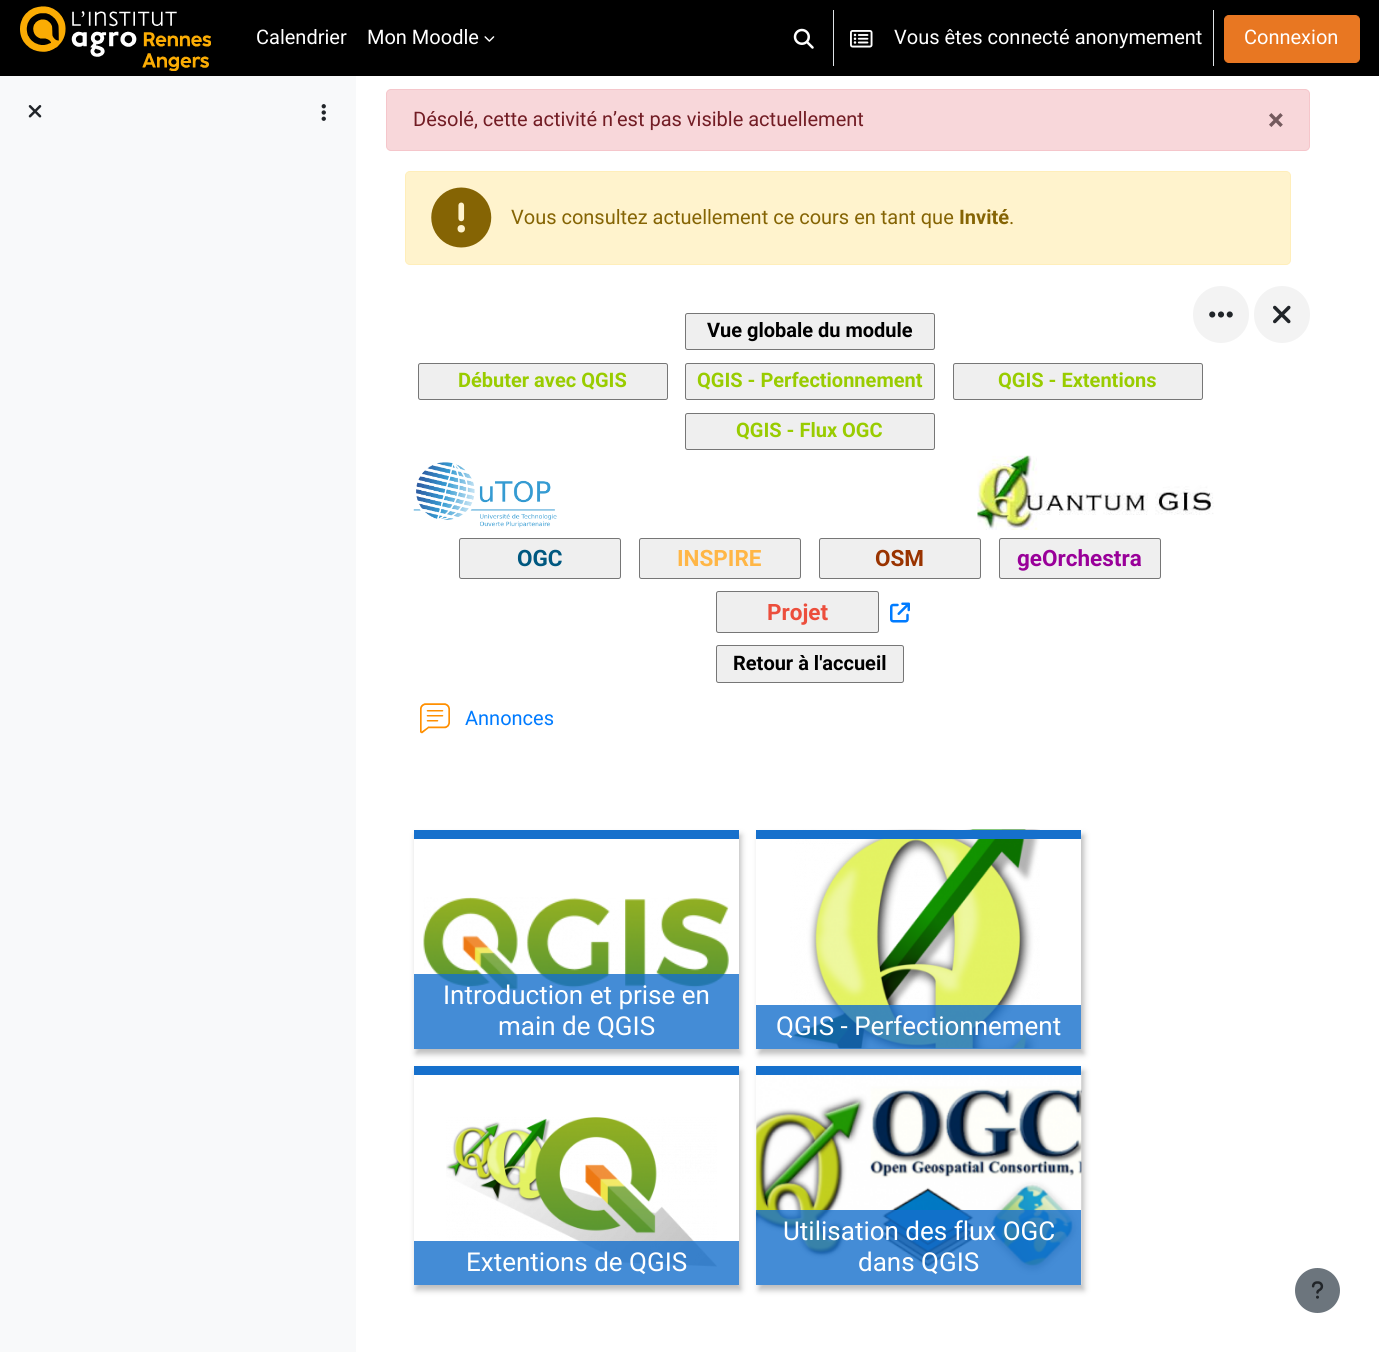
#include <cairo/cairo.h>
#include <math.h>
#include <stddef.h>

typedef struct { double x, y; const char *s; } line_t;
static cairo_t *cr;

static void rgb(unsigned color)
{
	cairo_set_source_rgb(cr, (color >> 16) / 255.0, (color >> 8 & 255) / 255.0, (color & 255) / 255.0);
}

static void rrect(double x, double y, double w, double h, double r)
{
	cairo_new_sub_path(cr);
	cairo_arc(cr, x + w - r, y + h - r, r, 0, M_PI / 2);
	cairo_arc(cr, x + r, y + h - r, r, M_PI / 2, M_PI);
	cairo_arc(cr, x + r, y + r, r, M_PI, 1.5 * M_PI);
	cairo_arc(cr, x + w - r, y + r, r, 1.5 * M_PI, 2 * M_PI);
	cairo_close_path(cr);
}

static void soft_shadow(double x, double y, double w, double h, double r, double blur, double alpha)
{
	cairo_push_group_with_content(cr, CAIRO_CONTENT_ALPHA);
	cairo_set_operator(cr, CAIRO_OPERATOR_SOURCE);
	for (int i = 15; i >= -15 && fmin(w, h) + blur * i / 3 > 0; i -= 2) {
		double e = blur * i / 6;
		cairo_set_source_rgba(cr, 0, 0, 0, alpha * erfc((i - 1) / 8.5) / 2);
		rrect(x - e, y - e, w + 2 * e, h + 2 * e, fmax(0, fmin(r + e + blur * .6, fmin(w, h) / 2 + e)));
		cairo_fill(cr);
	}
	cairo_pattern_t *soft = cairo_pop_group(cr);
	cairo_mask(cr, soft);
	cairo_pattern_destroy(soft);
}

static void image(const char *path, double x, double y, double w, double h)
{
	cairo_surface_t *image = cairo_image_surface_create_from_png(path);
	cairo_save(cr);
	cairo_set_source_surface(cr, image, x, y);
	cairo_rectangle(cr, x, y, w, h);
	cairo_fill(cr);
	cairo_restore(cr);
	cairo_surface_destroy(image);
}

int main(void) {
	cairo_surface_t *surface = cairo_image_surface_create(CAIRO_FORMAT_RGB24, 1379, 1352);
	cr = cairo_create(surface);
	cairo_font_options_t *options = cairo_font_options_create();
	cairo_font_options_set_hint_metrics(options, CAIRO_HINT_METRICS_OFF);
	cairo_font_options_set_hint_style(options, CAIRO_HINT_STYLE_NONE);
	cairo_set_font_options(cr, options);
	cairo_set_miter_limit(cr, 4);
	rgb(0xffffff);
	cairo_paint(cr);
	rgb(0x000000);
	cairo_rectangle(cr, 0, 0, 1379, 76);
	cairo_fill(cr);
	image("img/1.png", 20, 6, 191, 65);
	image("img/2.png", 484, 36, 11, 6);
	image("img/3.png", 793, 28, 21, 21);
	rgb(0xdee2e6);
	cairo_rectangle(cr, 833, 10, 1, 56);
	cairo_fill(cr);
	image("img/4.png", 850, 30, 23, 18);
	cairo_rectangle(cr, 1213, 10, 1, 56);
	cairo_fill(cr);
	rgb(0xe87722);
	rrect(1224.5, 15.5, 135, 47, 4.5);
	cairo_fill_preserve(cr);
	cairo_set_line_width(cr, 1);
	cairo_stroke(cr);
	rgb(0xf8f9fa);
	cairo_rectangle(cr, 0, 76, 356, 1276);
	cairo_fill(cr);
	image("img/5.png", 28, 105, 14, 13);
	image("img/6.png", 321, 104, 5, 17);
	rgb(0xf8d7da);
	rrect(386.5, 89.5, 923, 61, 4.5);
	cairo_fill_preserve(cr);
	rgb(0xf5c6cb);
	cairo_stroke(cr);
	rgb(0xfff3cd);
	rrect(405.5, 171.5, 885, 93, 4.5);
	cairo_fill_preserve(cr);
	rgb(0xffeeba);
	cairo_stroke(cr);
	image("img/7.png", 431, 187, 61, 61);
	rgb(0xf3f3f3);
	rrect(1193, 286, 56, 57, 28);
	cairo_fill(cr);
	image("img/8.png", 1209, 311, 24, 7);
	rrect(1254, 286, 56, 57, 28);
	cairo_fill(cr);
	image("img/9.png", 1273, 305, 18, 19);
	rgb(0xefefef);
	rrect(685.5, 313.5, 249, 36, 2);
	cairo_fill_preserve(cr);
	rgb(0x767676);
	cairo_stroke(cr);
	rgb(0xefefef);
	rrect(418.5, 363.5, 249, 36, 2);
	cairo_fill_preserve(cr);
	rgb(0x767676);
	cairo_stroke(cr);
	rgb(0xefefef);
	rrect(685.5, 363.5, 249, 36, 2);
	cairo_fill_preserve(cr);
	rgb(0x767676);
	cairo_stroke(cr);
	rgb(0xefefef);
	rrect(953.5, 363.5, 249, 36, 2);
	cairo_fill_preserve(cr);
	rgb(0x767676);
	cairo_stroke(cr);
	rgb(0xefefef);
	rrect(685.5, 413.5, 249, 36, 2);
	cairo_fill_preserve(cr);
	rgb(0x767676);
	cairo_stroke(cr);
	image("img/10.png", 413, 462, 144, 66);
	image("img/11.png", 977, 455, 237, 75);
	rgb(0xefefef);
	rrect(459.5, 538.5, 161, 40, 2);
	cairo_fill_preserve(cr);
	rgb(0x767676);
	cairo_stroke(cr);
	rgb(0xefefef);
	rrect(639.5, 538.5, 161, 40, 2);
	cairo_fill_preserve(cr);
	rgb(0x767676);
	cairo_stroke(cr);
	rgb(0xefefef);
	rrect(819.5, 538.5, 161, 40, 2);
	cairo_fill_preserve(cr);
	rgb(0x767676);
	cairo_stroke(cr);
	rgb(0xefefef);
	rrect(999.5, 538.5, 161, 40, 2);
	cairo_fill_preserve(cr);
	rgb(0x767676);
	cairo_stroke(cr);
	rgb(0xefefef);
	rrect(716.5, 591.5, 162, 41, 2);
	cairo_fill_preserve(cr);
	rgb(0x767676);
	cairo_stroke(cr);
	image("img/12.png", 890, 602, 20, 21);
	rgb(0xefefef);
	rrect(716.5, 645.5, 187, 37, 2);
	cairo_fill_preserve(cr);
	rgb(0x767676);
	cairo_stroke(cr);
	image("img/13.png", 420, 703, 30, 31);
	rgb(0xbdbdbd);
	soft_shadow(416, 835, 325, 219, 0, 3, 1);
	rgb(0xffffff);
	cairo_rectangle(cr, 414, 839, 325, 210);
	cairo_fill(cr);
	image("img/14.png", 423, 897, 306, 93);
	rgb(0x1670cc);
	cairo_rectangle(cr, 414, 830, 325, 9);
	cairo_fill(cr);
	cairo_set_source_rgba(cr, 0.086, 0.439, 0.8, 0.8);
	cairo_rectangle(cr, 414, 974, 325, 75);
	cairo_fill(cr);
	rgb(0xbdbdbd);
	soft_shadow(759, 835, 325, 219, 0, 3, 1);
	rgb(0xffffff);
	cairo_rectangle(cr, 756, 839, 325, 210);
	cairo_fill(cr);
	image("img/15.png", 790, 829, 250, 220);
	rgb(0x1670cc);
	cairo_rectangle(cr, 756, 830, 325, 9);
	cairo_fill(cr);
	cairo_set_source_rgba(cr, 0.086, 0.439, 0.8, 0.8);
	cairo_rectangle(cr, 756, 1005, 325, 44);
	cairo_fill(cr);
	rgb(0xbdbdbd);
	soft_shadow(416, 1071, 325, 219, 0, 3, 1);
	rgb(0xffffff);
	cairo_rectangle(cr, 414, 1075, 325, 210);
	cairo_fill(cr);
	image("img/16.png", 446, 1117, 271, 150);
	rgb(0x1670cc);
	cairo_rectangle(cr, 414, 1066, 325, 9);
	cairo_fill(cr);
	cairo_set_source_rgba(cr, 0.086, 0.439, 0.8, 0.8);
	cairo_rectangle(cr, 414, 1241, 325, 44);
	cairo_fill(cr);
	rgb(0xbdbdbd);
	soft_shadow(759, 1071, 325, 219, 0, 3, 1);
	rgb(0xffffff);
	cairo_rectangle(cr, 756, 1075, 325, 210);
	cairo_fill(cr);
	image("img/17.png", 756, 1074, 326, 211);
	rgb(0x1670cc);
	cairo_rectangle(cr, 756, 1066, 325, 9);
	cairo_fill(cr);
	cairo_set_source_rgba(cr, 0.086, 0.439, 0.8, 0.8);
	cairo_rectangle(cr, 756, 1210, 325, 75);
	cairo_fill(cr);
	rgb(0x6c757d);
	cairo_arc(cr, 1317.5, 1290.5, 22.5, 0, 2 * M_PI);
	cairo_fill(cr);
	image("img/18.png", 1311, 1281, 13, 18);
	cairo_select_font_face(cr, "Roboto", CAIRO_FONT_SLANT_NORMAL, CAIRO_FONT_WEIGHT_NORMAL);
	cairo_set_font_size(cr, 20);
	rgb(0xffffff);
	{
		static const line_t items[] = {
			{256, 44, "Calendrier"},
			{367, 44, "Mon Moodle"},
			{894, 44, "Vous êtes connecté anonymement"},
			{1244, 44, "Connexion"},
		};
		for (size_t i = 0; i < sizeof items / sizeof *items; i++) {
			cairo_move_to(cr, items[i].x, items[i].y);
			cairo_show_text(cr, items[i].s);
		}
	}
	rgb(0x721c24);
	cairo_move_to(cr, 413, 126);
	cairo_show_text(cr, "Désolé, cette activité n’est pas visible actuellement");
	cairo_select_font_face(cr, "Roboto", CAIRO_FONT_SLANT_NORMAL, CAIRO_FONT_WEIGHT_BOLD);
	cairo_set_font_size(cr, 30);
	rgb(0x745a5d);
	cairo_move_to(cr, 1268, 130);
	cairo_show_text(cr, "×");
	cairo_select_font_face(cr, "Roboto", CAIRO_FONT_SLANT_NORMAL, CAIRO_FONT_WEIGHT_NORMAL);
	cairo_set_font_size(cr, 20);
	rgb(0x856404);
	cairo_move_to(cr, 511, 224);
	cairo_show_text(cr, "Vous consultez actuellement ce cours en tant que");
	cairo_select_font_face(cr, "Roboto", CAIRO_FONT_SLANT_NORMAL, CAIRO_FONT_WEIGHT_BOLD);
	cairo_move_to(cr, 959, 224);
	cairo_show_text(cr, "Invité");
	cairo_select_font_face(cr, "Roboto", CAIRO_FONT_SLANT_NORMAL, CAIRO_FONT_WEIGHT_NORMAL);
	cairo_move_to(cr, 1009, 224);
	cairo_show_text(cr, ".");
	cairo_select_font_face(cr, "Roboto", CAIRO_FONT_SLANT_NORMAL, CAIRO_FONT_WEIGHT_BOLD);
	rgb(0x000000);
	cairo_move_to(cr, 707, 337);
	cairo_show_text(cr, "Vue globale du module");
	rgb(0x99cc00);
	{
		static const line_t items[] = {
			{458, 387, "Débuter avec QGIS"},
			{697, 387, "QGIS - Perfectionnement"},
			{998, 387, "QGIS - Extentions"},
			{736, 437, "QGIS - Flux OGC"},
		};
		for (size_t i = 0; i < sizeof items / sizeof *items; i++) {
			cairo_move_to(cr, items[i].x, items[i].y);
			cairo_show_text(cr, items[i].s);
		}
	}
	cairo_set_font_size(cr, 22.5);
	rgb(0x005880);
	cairo_move_to(cr, 517, 566);
	cairo_show_text(cr, "OGC");
	rgb(0xffb646);
	cairo_move_to(cr, 677, 566);
	cairo_show_text(cr, "INSPIRE");
	rgb(0x993300);
	cairo_move_to(cr, 875, 566);
	cairo_show_text(cr, "OSM");
	rgb(0x990099);
	cairo_move_to(cr, 1017, 566);
	cairo_show_text(cr, "geOrchestra");
	rgb(0xec4e3c);
	cairo_move_to(cr, 767, 620);
	cairo_show_text(cr, "Projet");
	cairo_set_font_size(cr, 20);
	rgb(0x000000);
	cairo_move_to(cr, 733, 670);
	cairo_show_text(cr, "Retour à l'accueil");
	cairo_select_font_face(cr, "Roboto", CAIRO_FONT_SLANT_NORMAL, CAIRO_FONT_WEIGHT_NORMAL);
	rgb(0x007bff);
	cairo_move_to(cr, 465, 725);
	cairo_show_text(cr, "Annonces");
	cairo_set_font_size(cr, 26);
	rgb(0xffffff);
	{
		static const line_t items[] = {
			{443, 1004, "Introduction et prise en"},
			{498, 1035, "main de QGIS"},
			{776, 1035, "QGIS - Perfectionnement"},
			{466, 1271, "Extentions de QGIS"},
			{783, 1240, "Utilisation des flux OGC"},
			{858, 1271, "dans QGIS"},
		};
		for (size_t i = 0; i < sizeof items / sizeof *items; i++) {
			cairo_move_to(cr, items[i].x, items[i].y);
			cairo_show_text(cr, items[i].s);
		}
	}
	cairo_surface_write_to_png(surface, "page.png");
	cairo_font_options_destroy(options);
	cairo_destroy(cr);
	cairo_surface_destroy(surface);
	return 0;
}
